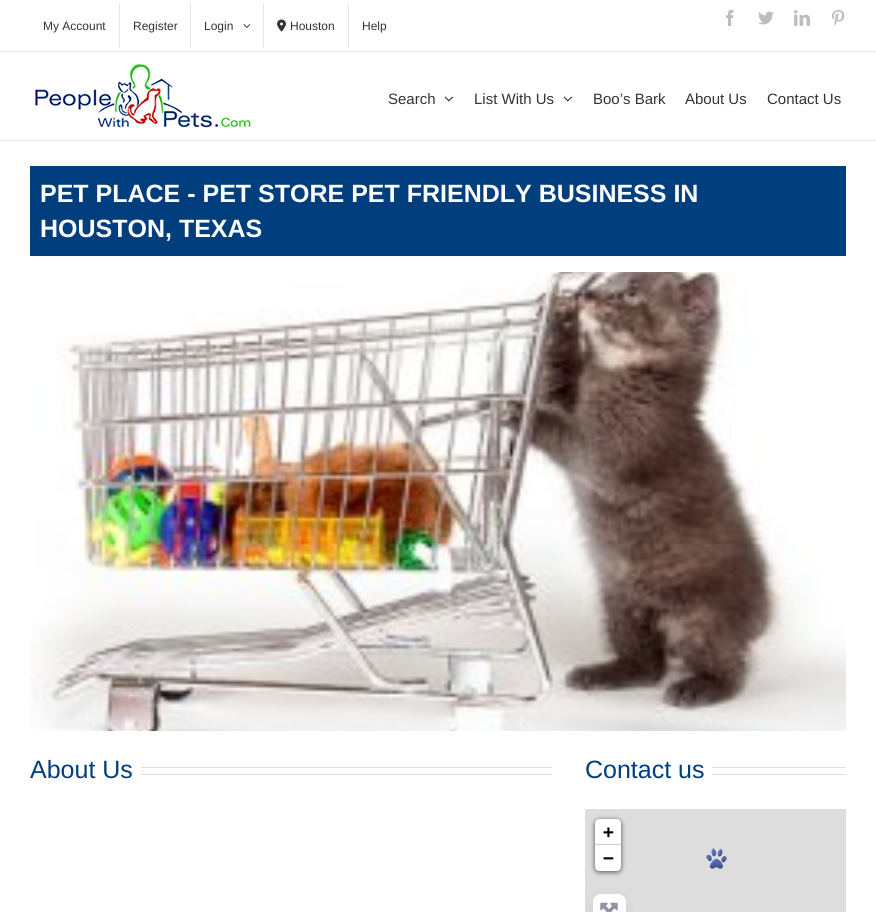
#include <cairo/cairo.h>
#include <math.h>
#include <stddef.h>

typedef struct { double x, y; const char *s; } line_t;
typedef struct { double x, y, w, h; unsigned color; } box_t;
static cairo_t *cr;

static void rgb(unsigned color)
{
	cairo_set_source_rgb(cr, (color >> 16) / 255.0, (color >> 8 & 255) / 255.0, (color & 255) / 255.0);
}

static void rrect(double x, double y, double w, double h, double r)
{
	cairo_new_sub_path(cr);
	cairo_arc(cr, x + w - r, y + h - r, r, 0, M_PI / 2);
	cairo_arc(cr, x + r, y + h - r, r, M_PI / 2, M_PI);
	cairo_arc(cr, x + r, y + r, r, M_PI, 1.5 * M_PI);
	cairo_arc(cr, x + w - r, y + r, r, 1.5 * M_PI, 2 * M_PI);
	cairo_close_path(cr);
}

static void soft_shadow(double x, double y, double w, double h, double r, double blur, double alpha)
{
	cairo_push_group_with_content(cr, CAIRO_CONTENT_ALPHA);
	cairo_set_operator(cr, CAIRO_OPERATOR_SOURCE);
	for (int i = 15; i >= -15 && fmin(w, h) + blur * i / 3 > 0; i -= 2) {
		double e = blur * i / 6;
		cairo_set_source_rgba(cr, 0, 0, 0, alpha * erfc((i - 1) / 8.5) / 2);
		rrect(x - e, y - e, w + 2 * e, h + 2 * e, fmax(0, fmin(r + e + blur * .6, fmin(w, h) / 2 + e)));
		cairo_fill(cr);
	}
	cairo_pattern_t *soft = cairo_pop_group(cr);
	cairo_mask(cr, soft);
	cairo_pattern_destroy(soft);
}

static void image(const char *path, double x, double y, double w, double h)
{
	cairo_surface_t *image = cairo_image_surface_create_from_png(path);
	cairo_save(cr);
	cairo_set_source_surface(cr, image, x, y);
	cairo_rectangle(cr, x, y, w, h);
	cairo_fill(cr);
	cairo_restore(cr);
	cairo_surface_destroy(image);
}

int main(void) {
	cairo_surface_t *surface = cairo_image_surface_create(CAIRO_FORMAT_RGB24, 876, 912);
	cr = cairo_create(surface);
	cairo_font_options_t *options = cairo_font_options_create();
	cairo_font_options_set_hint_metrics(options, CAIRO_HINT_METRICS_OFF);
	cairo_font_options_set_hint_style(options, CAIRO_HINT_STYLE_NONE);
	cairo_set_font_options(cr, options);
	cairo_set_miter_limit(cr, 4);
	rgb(0xffffff);
	cairo_paint(cr);
	{
		static const box_t items[] = {
			{0, 51, 876, 1, 0xe5e5e5},
			{119, 4, 1, 44, 0xe5e5e5},
			{190, 4, 1, 44, 0xe5e5e5},
		};
		for (size_t i = 0; i < sizeof items / sizeof *items; i++) {
			rgb(items[i].color);
			cairo_rectangle(cr, items[i].x, items[i].y, items[i].w, items[i].h);
			cairo_fill(cr);
		}
	}
	image("img/1.png", 243, 24, 8, 4);
	cairo_rectangle(cr, 263, 4, 1, 44);
	cairo_fill(cr);
	image("img/2.png", 277, 19, 9, 13);
	cairo_rectangle(cr, 348, 4, 1, 44);
	cairo_fill(cr);
	image("img/3.png", 726, 10, 8, 16);
	image("img/4.png", 758, 11, 16, 14);
	image("img/5.png", 794, 10, 16, 16);
	image("img/6.png", 831, 10, 14, 16);
	cairo_rectangle(cr, 0, 140, 876, 1);
	cairo_fill(cr);
	image("img/7.png", 35, 64, 216, 64);
	image("img/8.png", 444, 96, 9, 6);
	image("img/8.png", 563, 96, 9, 6);
	rgb(0x013e7d);
	cairo_rectangle(cr, 30, 166, 816, 90);
	cairo_fill(cr);
	image("img/9.png", 30, 272, 816, 459);
	{
		static const box_t items[] = {
			{141, 767, 411, 1, 0xe0dede},
			{141, 774, 411, 1, 0xe0dede},
			{712, 767, 134, 1, 0xe0dede},
			{712, 774, 134, 1, 0xe0dede},
			{585, 809, 261, 103, 0xdddddd},
		};
		for (size_t i = 0; i < sizeof items / sizeof *items; i++) {
			rgb(items[i].color);
			cairo_rectangle(cr, items[i].x, items[i].y, items[i].w, items[i].h);
			cairo_fill(cr);
		}
	}
	rgb(0x000000);
	soft_shadow(595, 820, 26, 52, 4, 2.5, 0.65);
	rgb(0xffffff);
	cairo_new_path(cr);
	cairo_move_to(cr, 599, 819);
	cairo_line_to(cr, 617, 819);
	cairo_curve_to(cr, 619, 819, 621, 821, 621, 823);
	cairo_line_to(cr, 621, 845);
	cairo_line_to(cr, 595, 845);
	cairo_line_to(cr, 595, 823);
	cairo_curve_to(cr, 595, 821, 597, 819, 599, 819);
	cairo_close_path(cr);
	cairo_fill(cr);
	rgb(0xcccccc);
	cairo_rectangle(cr, 595, 844, 26, 1);
	cairo_fill(cr);
	rgb(0xffffff);
	cairo_new_path(cr);
	cairo_move_to(cr, 595, 845);
	cairo_line_to(cr, 621, 845);
	cairo_line_to(cr, 621, 867);
	cairo_curve_to(cr, 621, 869, 619, 871, 617, 871);
	cairo_line_to(cr, 599, 871);
	cairo_curve_to(cr, 597, 871, 595, 869, 595, 867);
	cairo_close_path(cr);
	cairo_fill(cr);
	image("img/10.png", 706, 848, 21, 21);
	rgb(0x1f1b2d);
	soft_shadow(593, 898, 33, 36, 8, 6, 0.08);
	rgb(0xffffff);
	rrect(593, 894, 33, 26, 8);
	cairo_fill(cr);
	image("img/11.png", 600, 902, 18, 10);
	cairo_select_font_face(cr, "Liberation Sans", CAIRO_FONT_SLANT_NORMAL, CAIRO_FONT_WEIGHT_NORMAL);
	cairo_set_font_size(cr, 12);
	rgb(0x333333);
	{
		static const line_t items[] = {
			{43, 30, "My Account"},
			{133, 30, "Register"},
			{204, 30, "Login"},
			{290, 30, "Houston"},
			{362, 30, "Help"},
		};
		for (size_t i = 0; i < sizeof items / sizeof *items; i++) {
			cairo_move_to(cr, items[i].x, items[i].y);
			cairo_show_text(cr, items[i].s);
		}
	}
	cairo_set_font_size(cr, 15);
	{
		static const line_t items[] = {
			{388, 104, "Search"},
			{474, 104, "List With Us"},
			{593, 104, "Boo’s Bark"},
			{685, 104, "About Us"},
			{767, 104, "Contact Us"},
		};
		for (size_t i = 0; i < sizeof items / sizeof *items; i++) {
			cairo_move_to(cr, items[i].x, items[i].y);
			cairo_show_text(cr, items[i].s);
		}
	}
	cairo_select_font_face(cr, "Liberation Sans", CAIRO_FONT_SLANT_NORMAL, CAIRO_FONT_WEIGHT_BOLD);
	cairo_set_font_size(cr, 25);
	rgb(0xffffff);
	cairo_move_to(cr, 40, 202);
	cairo_show_text(cr, "PET PLACE - PET STORE PET FRIENDLY BUSINESS IN");
	cairo_move_to(cr, 40, 237);
	cairo_show_text(cr, "HOUSTON, TEXAS");
	cairo_select_font_face(cr, "Liberation Sans", CAIRO_FONT_SLANT_NORMAL, CAIRO_FONT_WEIGHT_NORMAL);
	rgb(0x003e7d);
	cairo_move_to(cr, 30, 778);
	cairo_show_text(cr, "About Us");
	cairo_move_to(cr, 585, 778);
	cairo_show_text(cr, "Contact us");
	cairo_select_font_face(cr, "DejaVu Sans Mono", CAIRO_FONT_SLANT_NORMAL, CAIRO_FONT_WEIGHT_BOLD);
	cairo_set_font_size(cr, 18);
	rgb(0x000000);
	cairo_move_to(cr, 603, 838);
	cairo_show_text(cr, "+");
	cairo_move_to(cr, 603, 864);
	cairo_show_text(cr, "−");
	cairo_surface_write_to_png(surface, "page.png");
	cairo_font_options_destroy(options);
	cairo_destroy(cr);
	cairo_surface_destroy(surface);
	return 0;
}
